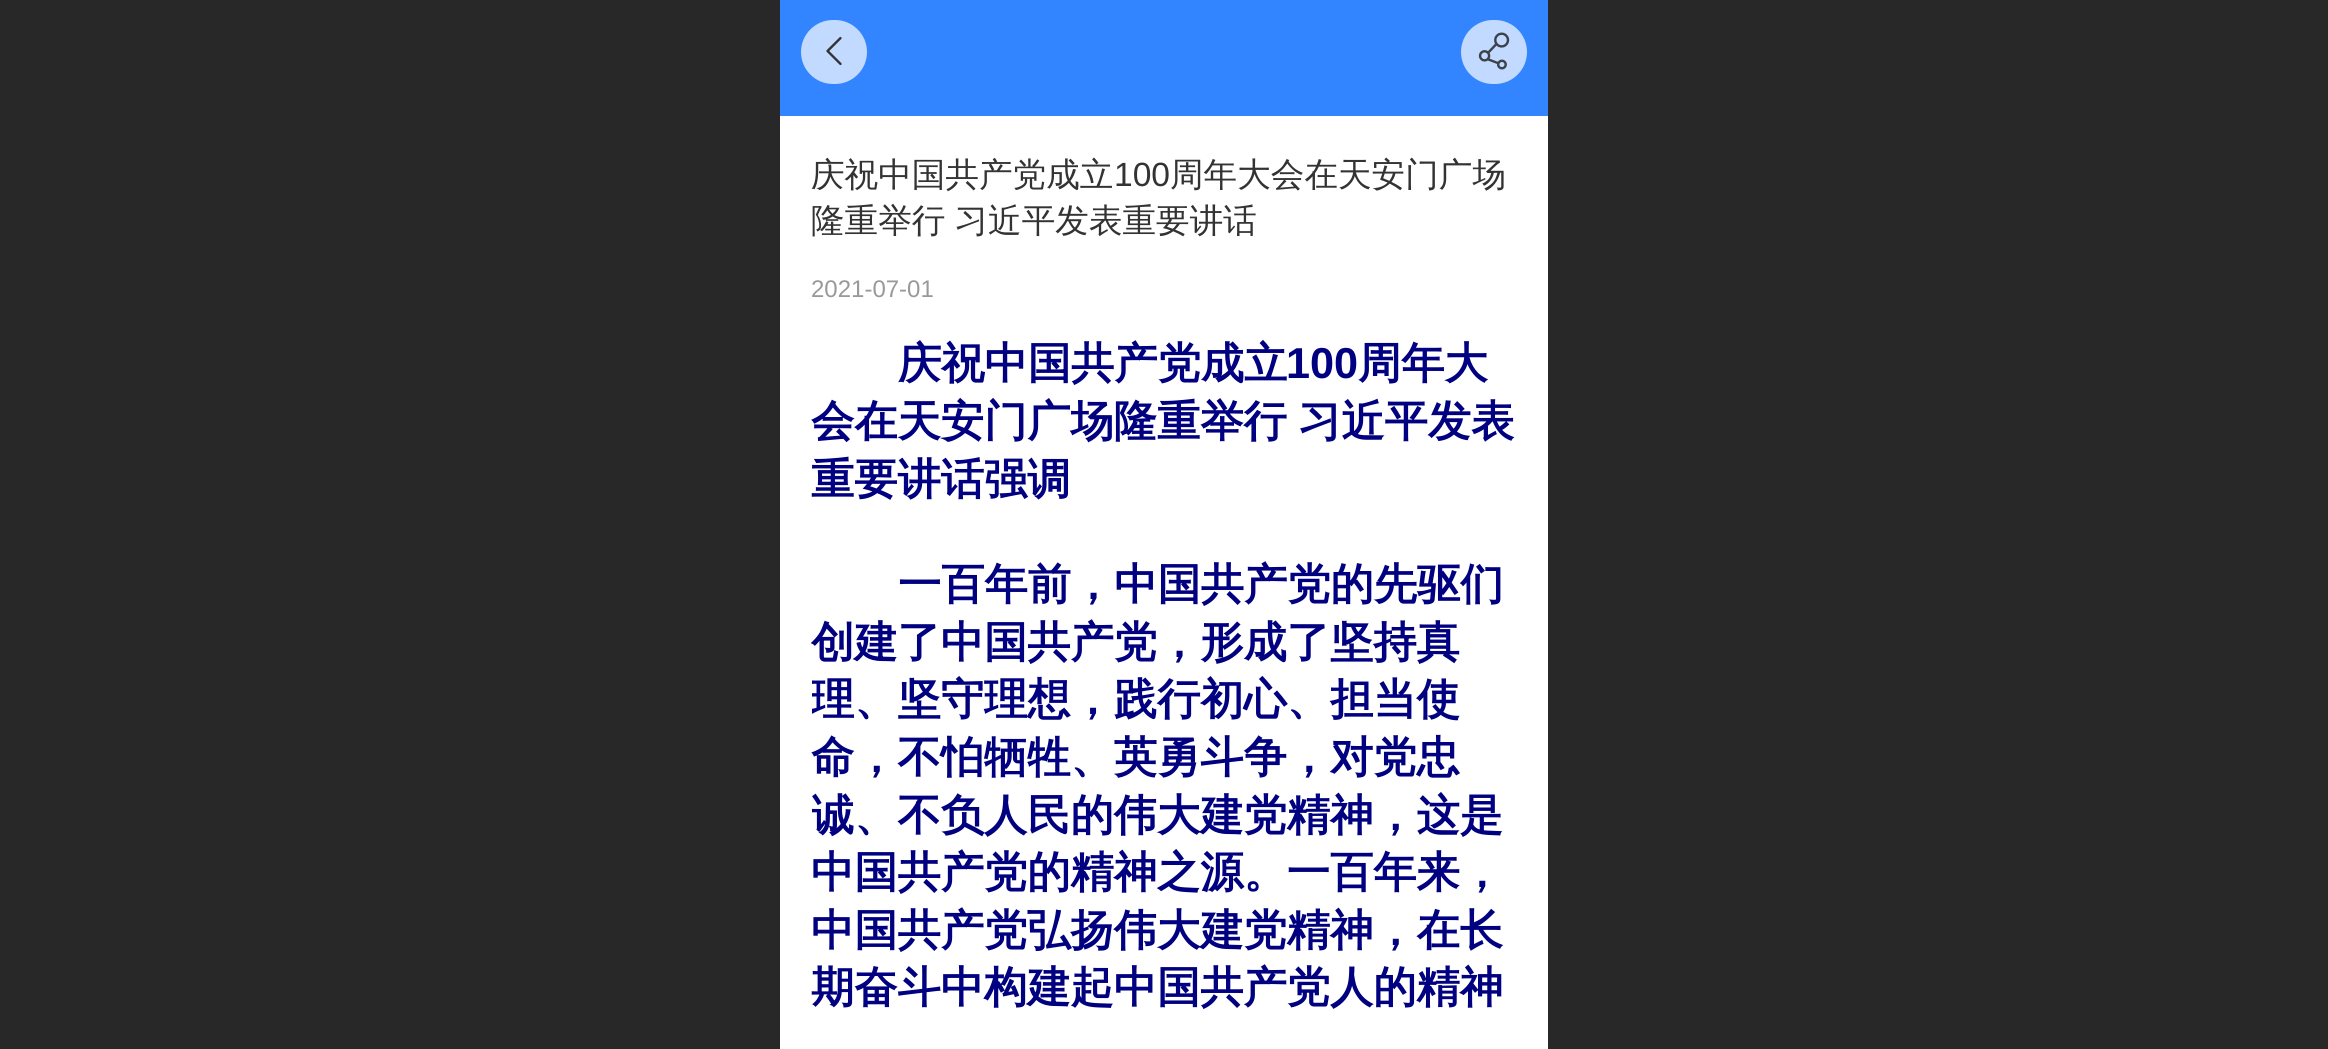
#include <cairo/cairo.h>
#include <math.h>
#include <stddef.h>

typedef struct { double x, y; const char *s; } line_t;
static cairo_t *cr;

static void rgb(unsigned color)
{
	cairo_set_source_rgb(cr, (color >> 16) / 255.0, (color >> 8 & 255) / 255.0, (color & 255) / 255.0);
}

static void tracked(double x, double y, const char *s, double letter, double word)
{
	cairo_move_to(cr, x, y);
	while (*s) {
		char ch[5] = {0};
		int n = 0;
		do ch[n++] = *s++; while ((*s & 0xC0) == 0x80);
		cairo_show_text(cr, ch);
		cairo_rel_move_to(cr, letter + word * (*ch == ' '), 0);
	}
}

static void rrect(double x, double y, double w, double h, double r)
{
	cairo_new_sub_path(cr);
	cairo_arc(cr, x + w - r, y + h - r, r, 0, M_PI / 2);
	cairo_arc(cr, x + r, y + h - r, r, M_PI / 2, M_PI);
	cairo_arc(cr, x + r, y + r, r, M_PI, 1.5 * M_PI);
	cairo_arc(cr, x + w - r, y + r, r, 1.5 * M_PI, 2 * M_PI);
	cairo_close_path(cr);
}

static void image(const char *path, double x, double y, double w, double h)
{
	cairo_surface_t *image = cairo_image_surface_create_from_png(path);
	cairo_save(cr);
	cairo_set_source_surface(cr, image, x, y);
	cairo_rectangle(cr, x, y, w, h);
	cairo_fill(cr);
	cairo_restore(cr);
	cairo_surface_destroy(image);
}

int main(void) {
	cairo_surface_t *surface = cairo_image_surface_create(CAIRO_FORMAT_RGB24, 2328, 1049);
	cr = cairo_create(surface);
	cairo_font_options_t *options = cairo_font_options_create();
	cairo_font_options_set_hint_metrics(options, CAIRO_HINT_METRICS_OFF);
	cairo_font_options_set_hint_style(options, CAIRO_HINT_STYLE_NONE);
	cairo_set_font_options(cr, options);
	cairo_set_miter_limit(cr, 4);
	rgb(0xffffff);
	cairo_paint(cr);
	rgb(0x282828);
	cairo_rectangle(cr, 0, 0, 780, 1049);
	cairo_fill(cr);
	rgb(0x3285ff);
	cairo_rectangle(cr, 780, 0, 768, 116);
	cairo_fill(cr);
	rgb(0xc2daff);
	rrect(801, 20, 66, 64, 32);
	cairo_fill(cr);
	image("img/1.png", 826, 36, 16, 30);
	rrect(1461, 20, 66, 64, 32);
	cairo_fill(cr);
	image("img/2.png", 1478, 32, 32, 38);
	rgb(0x282828);
	cairo_rectangle(cr, 1548, 0, 780, 1049);
	cairo_fill(cr);
	cairo_select_font_face(cr, "WenQuanYi Zen Hei Medium", CAIRO_FONT_SLANT_NORMAL, CAIRO_FONT_WEIGHT_NORMAL);
	cairo_set_font_size(cr, 33.6);
	rgb(0x333333);
	cairo_move_to(cr, 811, 186);
	cairo_show_text(cr, "庆祝中国共产党成立");
	cairo_select_font_face(cr, "Liberation Sans", CAIRO_FONT_SLANT_NORMAL, CAIRO_FONT_WEIGHT_NORMAL);
	cairo_move_to(cr, 1114, 186);
	cairo_show_text(cr, "100");
	cairo_select_font_face(cr, "WenQuanYi Zen Hei Medium", CAIRO_FONT_SLANT_NORMAL, CAIRO_FONT_WEIGHT_NORMAL);
	cairo_move_to(cr, 1170, 186);
	cairo_show_text(cr, "周年大会在天安门广场");
	tracked(811, 232, "隆重举行 习近平发表重要讲话", 0, -1);
	cairo_select_font_face(cr, "Liberation Sans", CAIRO_FONT_SLANT_NORMAL, CAIRO_FONT_WEIGHT_NORMAL);
	cairo_set_font_size(cr, 24);
	rgb(0x999999);
	cairo_move_to(cr, 811, 297);
	cairo_show_text(cr, "2021-07-01");
	cairo_select_font_face(cr, "WenQuanYi Zen Hei", CAIRO_FONT_SLANT_NORMAL, CAIRO_FONT_WEIGHT_BOLD);
	cairo_set_font_size(cr, 43.25);
	rgb(0x000080);
	cairo_move_to(cr, 898, 378);
	cairo_show_text(cr, "庆祝中国共产党成立");
	cairo_select_font_face(cr, "Liberation Sans", CAIRO_FONT_SLANT_NORMAL, CAIRO_FONT_WEIGHT_BOLD);
	cairo_move_to(cr, 1286, 378);
	cairo_show_text(cr, "100");
	cairo_select_font_face(cr, "WenQuanYi Zen Hei", CAIRO_FONT_SLANT_NORMAL, CAIRO_FONT_WEIGHT_BOLD);
	{
		static const line_t items[] = {
			{1358, 378, "周年大"},
			{811, 436, "会在天安门广场隆重举行"},
			{1298, 436, "习近平发表"},
			{811, 494, "重要讲话强调"},
			{898, 599, "一百年前，中国共产党的先驱们"},
			{811, 657, "创建了中国共产党，形成了坚持真"},
		};
		for (size_t i = 0; i < sizeof items / sizeof *items; i++) {
			cairo_move_to(cr, items[i].x, items[i].y);
			cairo_show_text(cr, items[i].s);
		}
	}
	cairo_save(cr);
	cairo_rectangle(cr, 812, 335, 705, 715);
	cairo_clip(cr);
	cairo_move_to(cr, 811, 714);
	cairo_show_text(cr, "理、坚守理想，践行初心、担当使");
	cairo_restore(cr);
	cairo_move_to(cr, 811, 772);
	cairo_show_text(cr, "命，不怕牺牲、英勇斗争，对党忠");
	cairo_save(cr);
	cairo_rectangle(cr, 812, 335, 705, 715);
	cairo_clip(cr);
	cairo_move_to(cr, 811, 830);
	cairo_show_text(cr, "诚、不负人民的伟大建党精神，这是");
	cairo_restore(cr);
	{
		static const line_t items[] = {
			{811, 887, "中国共产党的精神之源。一百年来，"},
			{811, 945, "中国共产党弘扬伟大建党精神，在长"},
			{811, 1002, "期奋斗中构建起中国共产党人的精神"},
		};
		for (size_t i = 0; i < sizeof items / sizeof *items; i++) {
			cairo_move_to(cr, items[i].x, items[i].y);
			cairo_show_text(cr, items[i].s);
		}
	}
	cairo_surface_write_to_png(surface, "page.png");
	cairo_font_options_destroy(options);
	cairo_destroy(cr);
	cairo_surface_destroy(surface);
	return 0;
}
